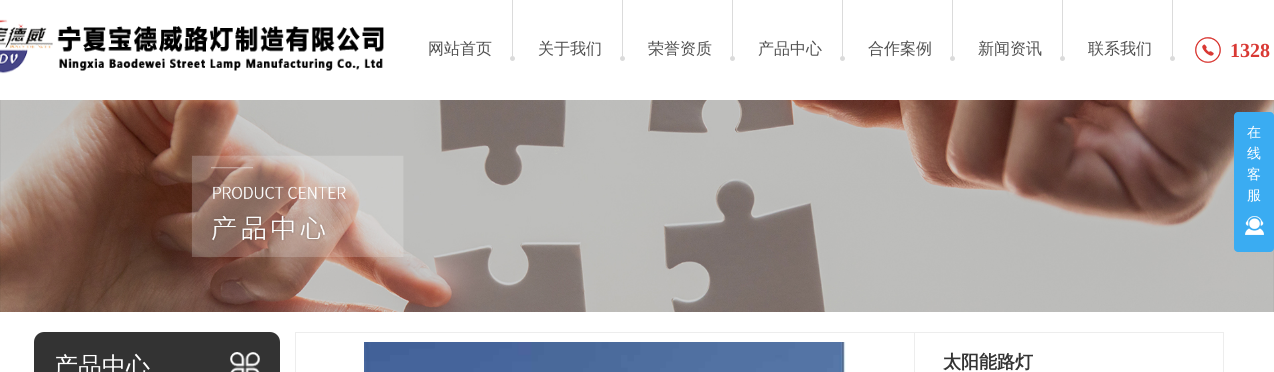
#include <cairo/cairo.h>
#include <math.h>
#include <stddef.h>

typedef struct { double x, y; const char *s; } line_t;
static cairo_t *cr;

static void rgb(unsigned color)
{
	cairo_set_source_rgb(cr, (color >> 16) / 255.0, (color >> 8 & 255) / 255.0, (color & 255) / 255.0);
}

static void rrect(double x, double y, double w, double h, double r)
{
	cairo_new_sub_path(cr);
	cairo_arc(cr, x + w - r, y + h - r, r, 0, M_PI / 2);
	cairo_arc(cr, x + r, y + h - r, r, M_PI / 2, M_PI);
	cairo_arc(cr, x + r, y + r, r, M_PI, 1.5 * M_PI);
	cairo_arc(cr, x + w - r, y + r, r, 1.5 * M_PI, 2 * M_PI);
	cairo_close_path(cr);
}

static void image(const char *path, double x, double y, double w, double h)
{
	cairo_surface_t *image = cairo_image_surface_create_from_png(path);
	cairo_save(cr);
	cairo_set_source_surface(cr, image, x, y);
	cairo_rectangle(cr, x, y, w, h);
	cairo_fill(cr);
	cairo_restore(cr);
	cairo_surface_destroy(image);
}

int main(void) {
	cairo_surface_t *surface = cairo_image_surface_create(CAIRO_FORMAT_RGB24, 1274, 372);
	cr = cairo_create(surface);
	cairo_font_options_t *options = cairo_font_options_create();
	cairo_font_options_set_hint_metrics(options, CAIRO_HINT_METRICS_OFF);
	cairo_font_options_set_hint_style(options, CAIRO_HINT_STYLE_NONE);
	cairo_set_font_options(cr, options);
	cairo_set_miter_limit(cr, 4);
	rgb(0xffffff);
	cairo_paint(cr);
	image("img/1.png", 0, 19, 384, 55);
	image("img/2.png", 510, 0, 5, 61);
	image("img/2.png", 620, 0, 5, 61);
	image("img/2.png", 730, 0, 5, 61);
	image("img/2.png", 840, 0, 5, 61);
	image("img/2.png", 950, 0, 5, 61);
	image("img/2.png", 1060, 0, 5, 61);
	image("img/2.png", 1170, 0, 5, 61);
	image("img/3.png", 1195, 37, 26, 26);
	image("img/4.png", 0, 100, 1274, 212);
	rgb(0x3aacf2);
	rrect(1234, 112, 40, 140, 4);
	cairo_fill(cr);
	image("img/5.png", 1245, 216, 19, 19);
	rgb(0x333333);
	cairo_new_path(cr);
	cairo_move_to(cr, 44, 332);
	cairo_line_to(cr, 270, 332);
	cairo_curve_to(cr, 275.5, 332, 280, 336.5, 280, 342);
	cairo_line_to(cr, 280, 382);
	cairo_line_to(cr, 34, 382);
	cairo_line_to(cr, 34, 342);
	cairo_curve_to(cr, 34, 336.5, 38.5, 332, 44, 332);
	cairo_close_path(cr);
	cairo_fill(cr);
	image("img/6.png", 230, 352, 30, 20);
	cairo_rectangle(cr, 295.5, 332.5, 619, 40);
	rgb(0xededed);
	cairo_set_line_width(cr, 1);
	cairo_stroke(cr);
	image("img/7.png", 364, 342, 482, 30);
	cairo_rectangle(cr, 915, 332, 309, 1);
	cairo_fill(cr);
	cairo_rectangle(cr, 1223, 332, 1, 40);
	cairo_fill(cr);
	cairo_select_font_face(cr, "WenQuanYi Zen Hei Medium", CAIRO_FONT_SLANT_NORMAL, CAIRO_FONT_WEIGHT_NORMAL);
	cairo_set_font_size(cr, 16);
	rgb(0x505050);
	{
		static const line_t items[] = {
			{428, 54, "网站首页"},
			{538, 54, "关于我们"},
			{648, 54, "荣誉资质"},
			{758, 54, "产品中心"},
			{868, 54, "合作案例"},
			{978, 54, "新闻资讯"},
			{1088, 54, "联系我们"},
		};
		for (size_t i = 0; i < sizeof items / sizeof *items; i++) {
			cairo_move_to(cr, items[i].x, items[i].y);
			cairo_show_text(cr, items[i].s);
		}
	}
	cairo_select_font_face(cr, "Liberation Serif", CAIRO_FONT_SLANT_NORMAL, CAIRO_FONT_WEIGHT_BOLD);
	cairo_set_font_size(cr, 20);
	rgb(0xd93934);
	cairo_move_to(cr, 1230, 57);
	cairo_show_text(cr, "1328");
	cairo_select_font_face(cr, "WenQuanYi Zen Hei Medium", CAIRO_FONT_SLANT_NORMAL, CAIRO_FONT_WEIGHT_NORMAL);
	cairo_set_font_size(cr, 14);
	rgb(0xffffff);
	{
		static const line_t items[] = {
			{1247, 137, "在"},
			{1247, 158, "线"},
			{1247, 179, "客"},
			{1247, 200, "服"},
		};
		for (size_t i = 0; i < sizeof items / sizeof *items; i++) {
			cairo_move_to(cr, items[i].x, items[i].y);
			cairo_show_text(cr, items[i].s);
		}
	}
	cairo_set_font_size(cr, 24);
	cairo_move_to(cr, 54, 374);
	cairo_show_text(cr, "产品中心");
	cairo_select_font_face(cr, "WenQuanYi Zen Hei", CAIRO_FONT_SLANT_NORMAL, CAIRO_FONT_WEIGHT_BOLD);
	cairo_set_font_size(cr, 18);
	rgb(0x333333);
	cairo_move_to(cr, 943, 368);
	cairo_show_text(cr, "太阳能路灯");
	cairo_surface_write_to_png(surface, "page.png");
	cairo_font_options_destroy(options);
	cairo_destroy(cr);
	cairo_surface_destroy(surface);
	return 0;
}
